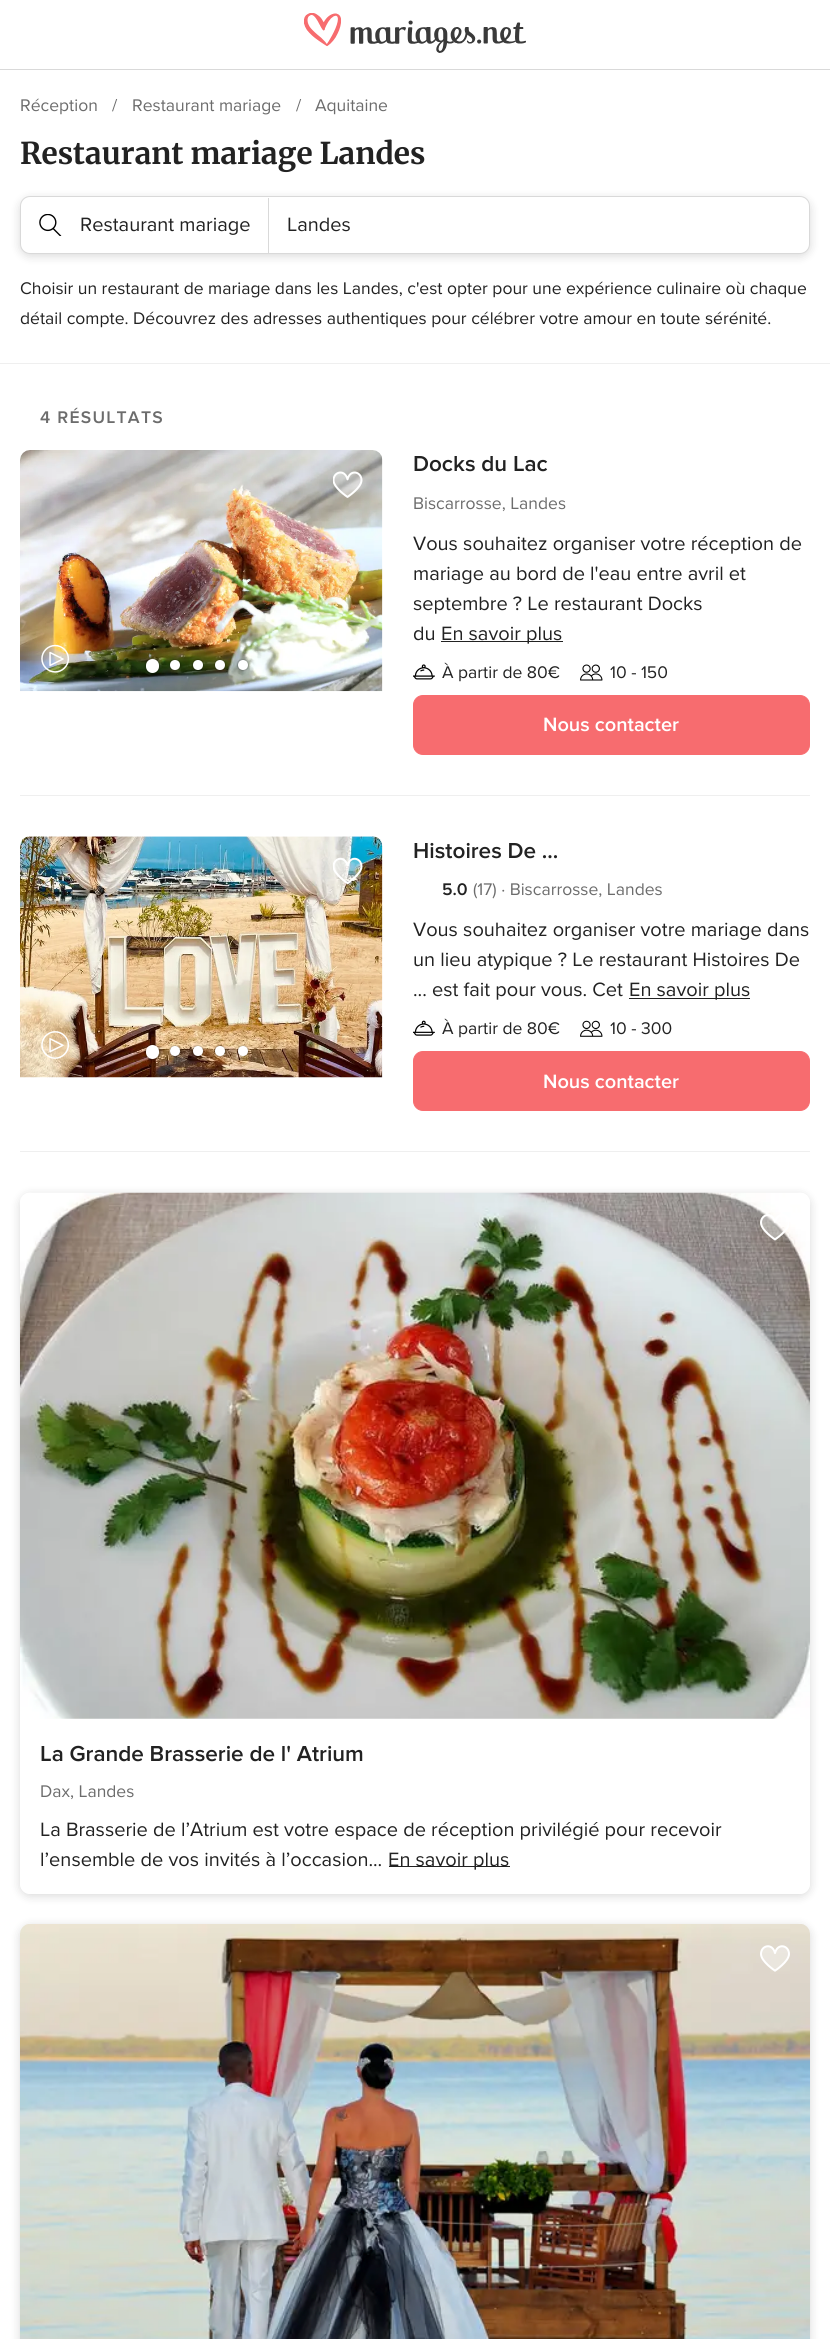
#include <cairo/cairo.h>
#include <math.h>
#include <stddef.h>

typedef struct { double x, y; const char *s; } line_t;
typedef struct { double x, y, w, h; unsigned color; } box_t;
static cairo_t *cr;

static void rgb(unsigned color)
{
	cairo_set_source_rgb(cr, (color >> 16) / 255.0, (color >> 8 & 255) / 255.0, (color & 255) / 255.0);
}

static void tracked(double x, double y, const char *s, double letter, double word)
{
	cairo_move_to(cr, x, y);
	while (*s) {
		char ch[5] = {0};
		int n = 0;
		do ch[n++] = *s++; while ((*s & 0xC0) == 0x80);
		cairo_show_text(cr, ch);
		cairo_rel_move_to(cr, letter + word * (*ch == ' '), 0);
	}
}

static void rrect(double x, double y, double w, double h, double r)
{
	cairo_new_sub_path(cr);
	cairo_arc(cr, x + w - r, y + h - r, r, 0, M_PI / 2);
	cairo_arc(cr, x + r, y + h - r, r, M_PI / 2, M_PI);
	cairo_arc(cr, x + r, y + r, r, M_PI, 1.5 * M_PI);
	cairo_arc(cr, x + w - r, y + r, r, 1.5 * M_PI, 2 * M_PI);
	cairo_close_path(cr);
}

static void soft_shadow(double x, double y, double w, double h, double r, double blur, double alpha)
{
	cairo_push_group_with_content(cr, CAIRO_CONTENT_ALPHA);
	cairo_set_operator(cr, CAIRO_OPERATOR_SOURCE);
	for (int i = 15; i >= -15 && fmin(w, h) + blur * i / 3 > 0; i -= 2) {
		double e = blur * i / 6;
		cairo_set_source_rgba(cr, 0, 0, 0, alpha * erfc((i - 1) / 8.5) / 2);
		rrect(x - e, y - e, w + 2 * e, h + 2 * e, fmax(0, fmin(r + e + blur * .6, fmin(w, h) / 2 + e)));
		cairo_fill(cr);
	}
	cairo_pattern_t *soft = cairo_pop_group(cr);
	cairo_mask(cr, soft);
	cairo_pattern_destroy(soft);
}

static void image(const char *path, double x, double y, double w, double h)
{
	cairo_surface_t *image = cairo_image_surface_create_from_png(path);
	cairo_save(cr);
	cairo_set_source_surface(cr, image, x, y);
	cairo_rectangle(cr, x, y, w, h);
	cairo_fill(cr);
	cairo_restore(cr);
	cairo_surface_destroy(image);
}

int main(void) {
	cairo_surface_t *surface = cairo_image_surface_create(CAIRO_FORMAT_RGB24, 830, 2339);
	cr = cairo_create(surface);
	cairo_font_options_t *options = cairo_font_options_create();
	cairo_font_options_set_hint_metrics(options, CAIRO_HINT_METRICS_OFF);
	cairo_font_options_set_hint_style(options, CAIRO_HINT_STYLE_NONE);
	cairo_set_font_options(cr, options);
	cairo_set_miter_limit(cr, 4);
	rgb(0xffffff);
	cairo_paint(cr);
	image("img/1.png", 304, 13, 222, 40);
	rgb(0xd9d9d9);
	cairo_rectangle(cr, 0, 69, 830, 1);
	cairo_fill(cr);
	rgb(0x000000);
	soft_shadow(20, 199, 790, 57, 10, 5, 0.15);
	rgb(0xffffff);
	rrect(20.5, 196.5, 789, 57, 9.5);
	cairo_fill_preserve(cr);
	rgb(0xd9d9d9);
	cairo_set_line_width(cr, 1);
	cairo_stroke(cr);
	image("img/2.png", 39, 214, 23, 22);
	{
		static const box_t items[] = {
			{268, 198, 1, 55, 0xd9d9d9},
			{0, 363, 830, 1, 0xefefef},
			{20, 795, 790, 1, 0xefefef},
		};
		for (size_t i = 0; i < sizeof items / sizeof *items; i++) {
			rgb(items[i].color);
			cairo_rectangle(cr, items[i].x, items[i].y, items[i].w, items[i].h);
			cairo_fill(cr);
		}
	}
	image("img/3.png", 20, 450, 363, 242);
	cairo_save(cr);
	cairo_set_fill_rule(cr, CAIRO_FILL_RULE_EVEN_ODD);
	cairo_new_path(cr);
	cairo_move_to(cr, 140, 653);
	cairo_line_to(cr, 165, 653);
	cairo_line_to(cr, 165, 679);
	cairo_line_to(cr, 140, 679);
	cairo_close_path(cr);
	cairo_move_to(cr, 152.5, 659);
	cairo_curve_to(cr, 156, 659, 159, 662, 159, 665.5);
	cairo_line_to(cr, 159, 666.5);
	cairo_curve_to(cr, 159, 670, 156, 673, 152.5, 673);
	cairo_curve_to(cr, 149, 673, 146, 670, 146, 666.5);
	cairo_line_to(cr, 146, 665.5);
	cairo_curve_to(cr, 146, 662, 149, 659, 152.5, 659);
	cairo_close_path(cr);
	cairo_clip(cr);
	rgb(0x000000);
	soft_shadow(146, 659, 13, 14, 6.5, 1.5, 0.5);
	cairo_restore(cr);
	rgb(0xffffff);
	rrect(146, 659, 13, 14, 6.5);
	cairo_fill(cr);
	rgb(0x000000);
	soft_shadow(170, 660, 10, 10, 5, 1, 0.5);
	rgb(0xffffff);
	cairo_arc(cr, 175, 665, 5, 0, 2 * M_PI);
	cairo_fill(cr);
	rgb(0x000000);
	soft_shadow(193, 660, 10, 10, 5, 1, 0.5);
	rgb(0xffffff);
	cairo_arc(cr, 198, 665, 5, 0, 2 * M_PI);
	cairo_fill(cr);
	rgb(0x000000);
	soft_shadow(215, 660, 10, 10, 5, 1, 0.5);
	rgb(0xffffff);
	cairo_arc(cr, 220, 665, 5, 0, 2 * M_PI);
	cairo_fill(cr);
	rgb(0x000000);
	soft_shadow(238, 660, 10, 10, 5, 1, 0.5);
	rgb(0xffffff);
	cairo_arc(cr, 243, 665, 5, 0, 2 * M_PI);
	cairo_fill(cr);
	image("img/4.png", 333, 471, 30, 27);
	image("img/5.png", 41, 644, 29, 29);
	rgb(0x222222);
	cairo_rectangle(cr, 441, 641, 122, 1);
	cairo_fill(cr);
	image("img/6.png", 413, 664, 22, 16);
	image("img/7.png", 580, 664, 23, 17);
	rgb(0xf76c6f);
	rrect(413.5, 695.5, 396, 59, 9.5);
	cairo_fill_preserve(cr);
	cairo_stroke(cr);
	rgb(0xefefef);
	cairo_rectangle(cr, 20, 1151, 790, 1);
	cairo_fill(cr);
	image("img/8.png", 20, 836, 363, 242);
	cairo_save(cr);
	cairo_set_fill_rule(cr, CAIRO_FILL_RULE_EVEN_ODD);
	cairo_new_path(cr);
	cairo_move_to(cr, 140, 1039);
	cairo_line_to(cr, 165, 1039);
	cairo_line_to(cr, 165, 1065);
	cairo_line_to(cr, 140, 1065);
	cairo_close_path(cr);
	cairo_move_to(cr, 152.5, 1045);
	cairo_curve_to(cr, 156, 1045, 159, 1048, 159, 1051.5);
	cairo_line_to(cr, 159, 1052.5);
	cairo_curve_to(cr, 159, 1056, 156, 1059, 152.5, 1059);
	cairo_curve_to(cr, 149, 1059, 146, 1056, 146, 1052.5);
	cairo_line_to(cr, 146, 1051.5);
	cairo_curve_to(cr, 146, 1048, 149, 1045, 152.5, 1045);
	cairo_close_path(cr);
	cairo_clip(cr);
	rgb(0x000000);
	soft_shadow(146, 1045, 13, 14, 6.5, 1.5, 0.5);
	cairo_restore(cr);
	rgb(0xffffff);
	rrect(146, 1045, 13, 14, 6.5);
	cairo_fill(cr);
	rgb(0x000000);
	soft_shadow(170, 1046, 10, 10, 5, 1, 0.5);
	rgb(0xffffff);
	cairo_arc(cr, 175, 1051, 5, 0, 2 * M_PI);
	cairo_fill(cr);
	rgb(0x000000);
	soft_shadow(193, 1046, 10, 10, 5, 1, 0.5);
	rgb(0xffffff);
	cairo_arc(cr, 198, 1051, 5, 0, 2 * M_PI);
	cairo_fill(cr);
	rgb(0x000000);
	soft_shadow(215, 1046, 10, 10, 5, 1, 0.5);
	rgb(0xffffff);
	cairo_arc(cr, 220, 1051, 5, 0, 2 * M_PI);
	cairo_fill(cr);
	rgb(0x000000);
	soft_shadow(238, 1046, 10, 10, 5, 1, 0.5);
	rgb(0xffffff);
	cairo_arc(cr, 243, 1051, 5, 0, 2 * M_PI);
	cairo_fill(cr);
	image("img/9.png", 333, 857, 30, 28);
	image("img/10.png", 41, 1031, 29, 28);
	rgb(0x222222);
	cairo_rectangle(cr, 629, 998, 121, 1);
	cairo_fill(cr);
	image("img/11.png", 413, 1020, 22, 16);
	image("img/12.png", 580, 1020, 23, 17);
	rgb(0xf76c6f);
	rrect(413.5, 1051.5, 396, 59, 9.5);
	cairo_fill_preserve(cr);
	cairo_stroke(cr);
	cairo_save(cr);
	cairo_set_fill_rule(cr, CAIRO_FILL_RULE_EVEN_ODD);
	cairo_new_path(cr);
	cairo_move_to(cr, 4, 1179);
	cairo_line_to(cr, 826, 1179);
	cairo_line_to(cr, 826, 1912);
	cairo_line_to(cr, 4, 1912);
	cairo_close_path(cr);
	cairo_move_to(cr, 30, 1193);
	cairo_line_to(cr, 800, 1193);
	cairo_curve_to(cr, 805.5, 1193, 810, 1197.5, 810, 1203);
	cairo_line_to(cr, 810, 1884);
	cairo_curve_to(cr, 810, 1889.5, 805.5, 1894, 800, 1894);
	cairo_line_to(cr, 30, 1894);
	cairo_curve_to(cr, 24.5, 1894, 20, 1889.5, 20, 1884);
	cairo_line_to(cr, 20, 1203);
	cairo_curve_to(cr, 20, 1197.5, 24.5, 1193, 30, 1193);
	cairo_close_path(cr);
	cairo_clip(cr);
	rgb(0x000000);
	soft_shadow(20, 1195, 790, 701, 10, 5, 0.15);
	cairo_restore(cr);
	image("img/13.png", 20, 1192, 790, 527);
	image("img/14.png", 760, 1214, 29, 27);
	rgb(0x222222);
	cairo_rectangle(cr, 389, 1866, 121, 1);
	cairo_fill(cr);
	rgb(0x000000);
	soft_shadow(20, 1926, 790, 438, 10, 5, 0.15);
	image("img/15.png", 20, 1924, 790, 415);
	image("img/16.png", 760, 1945, 30, 27);
	cairo_select_font_face(cr, "Proxima Nova", CAIRO_FONT_SLANT_NORMAL, CAIRO_FONT_WEIGHT_NORMAL);
	cairo_set_font_size(cr, 17.5);
	rgb(0x6c6c6c);
	{
		static const line_t items[] = {
			{20, 111, "Réception"},
			{112, 111, "/"},
			{132, 111, "Restaurant mariage"},
			{296, 111, "/"},
			{315, 111, "Aquitaine"},
		};
		for (size_t i = 0; i < sizeof items / sizeof *items; i++) {
			cairo_move_to(cr, items[i].x, items[i].y);
			cairo_show_text(cr, items[i].s);
		}
	}
	cairo_select_font_face(cr, "Merriweather", CAIRO_FONT_SLANT_NORMAL, CAIRO_FONT_WEIGHT_BOLD);
	cairo_set_font_size(cr, 30);
	rgb(0x222222);
	cairo_move_to(cr, 20, 164);
	cairo_show_text(cr, "Restaurant mariage Landes");
	cairo_select_font_face(cr, "Proxima Nova", CAIRO_FONT_SLANT_NORMAL, CAIRO_FONT_WEIGHT_NORMAL);
	cairo_set_font_size(cr, 20);
	cairo_move_to(cr, 80, 231);
	cairo_show_text(cr, "Restaurant mariage");
	cairo_move_to(cr, 287, 231);
	cairo_show_text(cr, "Landes");
	cairo_set_font_size(cr, 17.5);
	cairo_move_to(cr, 20, 294);
	cairo_show_text(cr, "Choisir un restaurant de mariage dans les Landes, c'est opter pour une expérience culinaire où chaque");
	cairo_move_to(cr, 20, 324);
	cairo_show_text(cr, "détail compte. Découvrez des adresses authentiques pour célébrer votre amour en toute sérénité.");
	cairo_select_font_face(cr, "Proxima Nova SemiBold", CAIRO_FONT_SLANT_NORMAL, CAIRO_FONT_WEIGHT_NORMAL);
	rgb(0x6c6c6c);
	tracked(40, 423, "4 RÉSULTATS", 1.25, 0);
	cairo_set_font_size(cr, 22.5);
	rgb(0x222222);
	cairo_move_to(cr, 413, 471);
	cairo_show_text(cr, "Docks du Lac");
	cairo_select_font_face(cr, "Proxima Nova", CAIRO_FONT_SLANT_NORMAL, CAIRO_FONT_WEIGHT_NORMAL);
	cairo_set_font_size(cr, 17.5);
	rgb(0x6c6c6c);
	cairo_move_to(cr, 413, 509);
	cairo_show_text(cr, "Biscarrosse, Landes");
	cairo_set_font_size(cr, 20);
	rgb(0x222222);
	{
		static const line_t items[] = {
			{413, 550, "Vous souhaitez organiser votre réception de"},
			{413, 580, "mariage au bord de l'eau entre avril et"},
			{413, 610, "septembre ? Le restaurant Docks"},
			{413, 640, "du"},
			{441, 640, "En savoir plus"},
		};
		for (size_t i = 0; i < sizeof items / sizeof *items; i++) {
			cairo_move_to(cr, items[i].x, items[i].y);
			cairo_show_text(cr, items[i].s);
		}
	}
	cairo_set_font_size(cr, 17.5);
	cairo_move_to(cr, 442, 678);
	cairo_show_text(cr, "À partir de 80€");
	cairo_move_to(cr, 610, 678);
	cairo_show_text(cr, "10 - 150");
	cairo_select_font_face(cr, "Proxima Nova SemiBold", CAIRO_FONT_SLANT_NORMAL, CAIRO_FONT_WEIGHT_NORMAL);
	cairo_set_font_size(cr, 20);
	rgb(0xffffff);
	cairo_move_to(cr, 543, 731);
	cairo_show_text(cr, "Nous contacter");
	cairo_set_font_size(cr, 22.5);
	rgb(0x222222);
	cairo_move_to(cr, 413, 858);
	cairo_show_text(cr, "Histoires De ...");
	cairo_set_font_size(cr, 17.5);
	cairo_move_to(cr, 442, 895);
	cairo_show_text(cr, "5.0");
	cairo_select_font_face(cr, "Proxima Nova", CAIRO_FONT_SLANT_NORMAL, CAIRO_FONT_WEIGHT_NORMAL);
	rgb(0x6c6c6c);
	cairo_move_to(cr, 473, 895);
	cairo_show_text(cr, "(17) · Biscarrosse, Landes");
	cairo_set_font_size(cr, 20);
	rgb(0x222222);
	{
		static const line_t items[] = {
			{413, 936, "Vous souhaitez organiser votre mariage dans"},
			{413, 966, "un lieu atypique ? Le restaurant Histoires De"},
			{413, 996, "... est fait pour vous. Cet"},
			{629, 996, "En savoir plus"},
		};
		for (size_t i = 0; i < sizeof items / sizeof *items; i++) {
			cairo_move_to(cr, items[i].x, items[i].y);
			cairo_show_text(cr, items[i].s);
		}
	}
	cairo_set_font_size(cr, 17.5);
	cairo_move_to(cr, 442, 1034);
	cairo_show_text(cr, "À partir de 80€");
	cairo_move_to(cr, 610, 1034);
	cairo_show_text(cr, "10 - 300");
	cairo_select_font_face(cr, "Proxima Nova SemiBold", CAIRO_FONT_SLANT_NORMAL, CAIRO_FONT_WEIGHT_NORMAL);
	cairo_set_font_size(cr, 20);
	rgb(0xffffff);
	cairo_move_to(cr, 543, 1088);
	cairo_show_text(cr, "Nous contacter");
	cairo_set_font_size(cr, 22.5);
	rgb(0x222222);
	cairo_move_to(cr, 40, 1761);
	cairo_show_text(cr, "La Grande Brasserie de l' Atrium");
	cairo_select_font_face(cr, "Proxima Nova", CAIRO_FONT_SLANT_NORMAL, CAIRO_FONT_WEIGHT_NORMAL);
	cairo_set_font_size(cr, 17.5);
	rgb(0x6c6c6c);
	cairo_move_to(cr, 40, 1797);
	cairo_show_text(cr, "Dax, Landes");
	cairo_set_font_size(cr, 20);
	rgb(0x222222);
	{
		static const line_t items[] = {
			{40, 1836, "La Brasserie de l’Atrium est votre espace de réception privilégié pour recevoir"},
			{40, 1866, "l’ensemble de vos invités à l’occasion..."},
			{388, 1866, "En savoir plus"},
		};
		for (size_t i = 0; i < sizeof items / sizeof *items; i++) {
			cairo_move_to(cr, items[i].x, items[i].y);
			cairo_show_text(cr, items[i].s);
		}
	}
	cairo_surface_write_to_png(surface, "page.png");
	cairo_font_options_destroy(options);
	cairo_destroy(cr);
	cairo_surface_destroy(surface);
	return 0;
}
